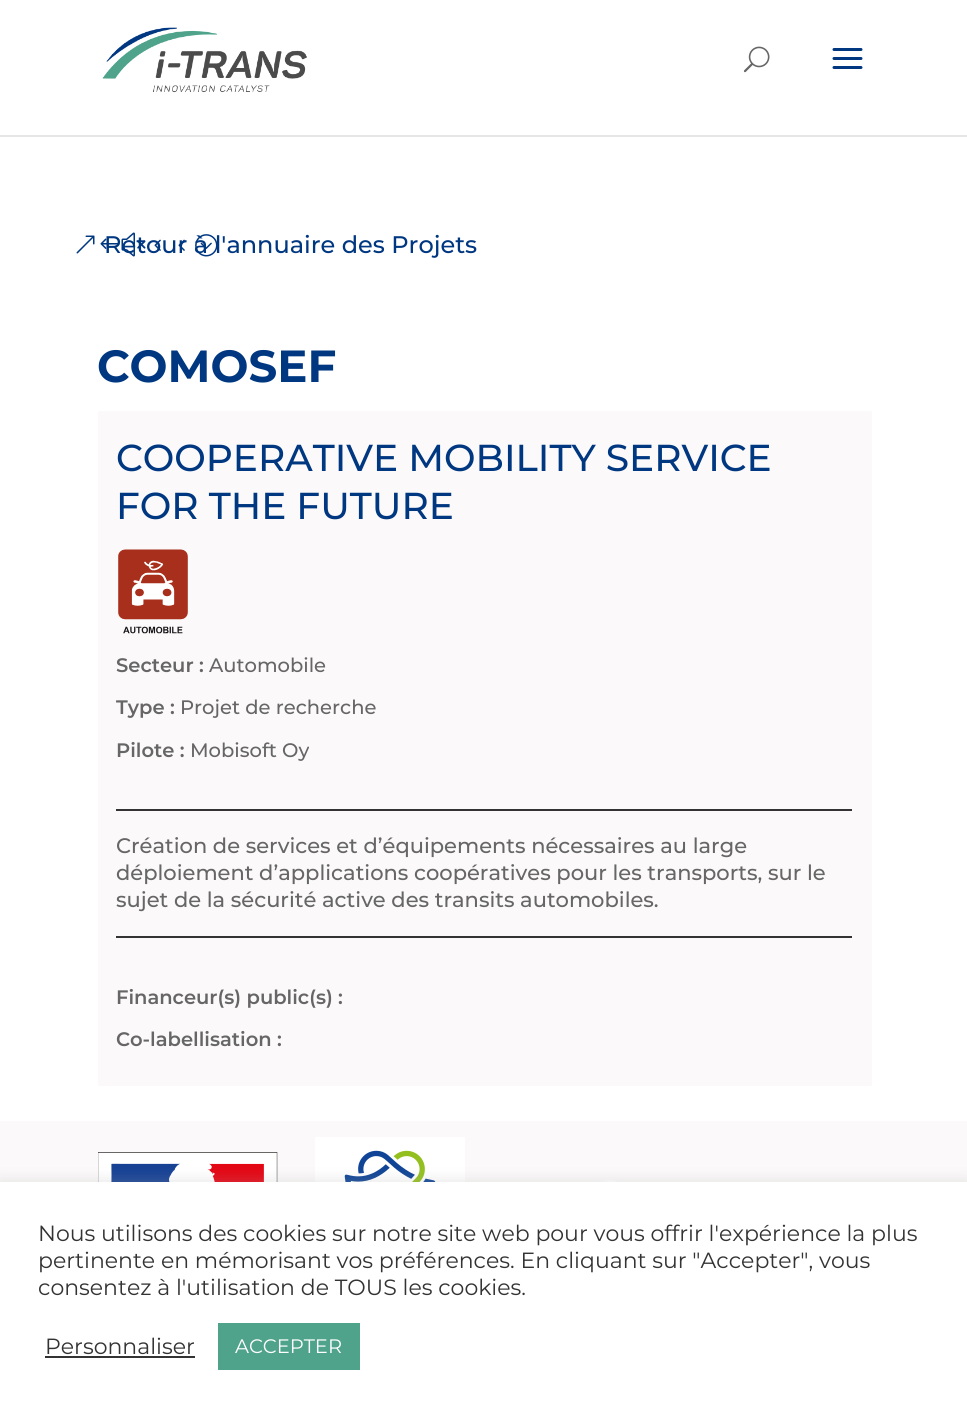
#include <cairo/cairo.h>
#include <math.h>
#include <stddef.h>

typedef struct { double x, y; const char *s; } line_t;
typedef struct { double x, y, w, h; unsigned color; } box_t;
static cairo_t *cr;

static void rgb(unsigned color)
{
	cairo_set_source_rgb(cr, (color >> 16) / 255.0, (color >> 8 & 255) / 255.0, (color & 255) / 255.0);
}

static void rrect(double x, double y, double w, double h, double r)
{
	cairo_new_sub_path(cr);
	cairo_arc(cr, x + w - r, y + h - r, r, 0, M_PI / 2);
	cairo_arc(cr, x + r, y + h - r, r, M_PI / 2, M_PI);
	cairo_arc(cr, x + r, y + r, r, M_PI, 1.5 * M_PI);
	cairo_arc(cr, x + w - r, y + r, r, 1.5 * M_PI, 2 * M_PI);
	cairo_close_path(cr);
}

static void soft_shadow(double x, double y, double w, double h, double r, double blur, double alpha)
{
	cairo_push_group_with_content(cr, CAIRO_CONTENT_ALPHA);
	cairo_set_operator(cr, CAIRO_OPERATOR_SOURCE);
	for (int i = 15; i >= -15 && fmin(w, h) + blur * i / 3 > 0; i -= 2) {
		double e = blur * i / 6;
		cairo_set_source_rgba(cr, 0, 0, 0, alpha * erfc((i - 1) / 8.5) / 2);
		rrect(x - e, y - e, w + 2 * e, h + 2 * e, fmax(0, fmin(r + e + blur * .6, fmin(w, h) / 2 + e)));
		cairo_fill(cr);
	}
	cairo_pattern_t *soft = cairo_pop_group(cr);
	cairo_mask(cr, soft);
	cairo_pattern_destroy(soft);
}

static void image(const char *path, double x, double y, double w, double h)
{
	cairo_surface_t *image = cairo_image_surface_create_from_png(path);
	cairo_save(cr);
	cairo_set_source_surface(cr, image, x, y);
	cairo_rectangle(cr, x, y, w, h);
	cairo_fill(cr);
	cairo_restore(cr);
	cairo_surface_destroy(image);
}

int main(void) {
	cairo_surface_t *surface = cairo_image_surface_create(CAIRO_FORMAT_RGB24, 967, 1414);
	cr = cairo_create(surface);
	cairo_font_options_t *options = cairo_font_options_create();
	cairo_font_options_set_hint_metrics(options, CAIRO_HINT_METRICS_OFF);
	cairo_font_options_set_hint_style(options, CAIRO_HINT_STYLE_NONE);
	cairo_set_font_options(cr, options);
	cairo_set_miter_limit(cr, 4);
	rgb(0xffffff);
	cairo_paint(cr);
	rgb(0xe6e6e6);
	cairo_new_path(cr);
	cairo_move_to(cr, 0, 135);
	cairo_line_to(cr, 0, 137);
	cairo_line_to(cr, 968, 137);
	cairo_line_to(cr, 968, 2);
	cairo_line_to(cr, 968, 135);
	cairo_close_path(cr);
	cairo_fill(cr);
	image("img/1.png", 102, 27, 205, 66);
	image("img/2.png", 743, 46, 27, 27);
	image("img/3.png", 832, 48, 31, 21);
	rgb(0xfbf9f9);
	cairo_rectangle(cr, 98, 411, 774, 675);
	cairo_fill(cr);
	image("img/5.png", 118, 549, 70, 85);
	{
		static const box_t items[] = {
			{116, 809, 736, 2, 0x333333},
			{116, 936, 736, 2, 0x333333},
			{0, 1121, 967, 61, 0xfbf9f9},
		};
		for (size_t i = 0; i < sizeof items / sizeof *items; i++) {
			rgb(items[i].color);
			cairo_rectangle(cr, items[i].x, items[i].y, items[i].w, items[i].h);
			cairo_fill(cr);
		}
	}
	image("img/6.png", 98, 1152, 180, 30);
	image("img/7.png", 315, 1137, 150, 45);
	image("img/8.png", 601, 1180, 17, 2);
	rgb(0xacabab);
	soft_shadow(0, 1181, 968, 232, 0, 7.5, 0.3);
	{
		static const box_t items[] = {
			{0, 1182, 967, 232, 0xffffff},
			{45, 1356, 150, 2, 0x333333},
			{218, 1323, 142, 47, 0x4fa38b},
		};
		for (size_t i = 0; i < sizeof items / sizeof *items; i++) {
			rgb(items[i].color);
			cairo_rectangle(cr, items[i].x, items[i].y, items[i].w, items[i].h);
			cairo_fill(cr);
		}
	}
	cairo_select_font_face(cr, "Montserrat Medium", CAIRO_FONT_SLANT_NORMAL, CAIRO_FONT_WEIGHT_NORMAL);
	cairo_set_font_size(cr, 24);
	rgb(0x003781);
	cairo_move_to(cr, 104, 253);
	cairo_show_text(cr, "Retour à l'annuaire des Projets");
	image("img/4.png", 76, 232, 141, 25);
	cairo_select_font_face(cr, "Montserrat", CAIRO_FONT_SLANT_NORMAL, CAIRO_FONT_WEIGHT_BOLD);
	cairo_set_font_size(cr, 45);
	cairo_move_to(cr, 97, 382);
	cairo_show_text(cr, "COMOSEF");
	cairo_select_font_face(cr, "Montserrat Medium", CAIRO_FONT_SLANT_NORMAL, CAIRO_FONT_WEIGHT_NORMAL);
	cairo_set_font_size(cr, 37.5);
	cairo_move_to(cr, 116, 471);
	cairo_show_text(cr, "COOPERATIVE MOBILITY SERVICE");
	cairo_move_to(cr, 116, 519);
	cairo_show_text(cr, "FOR THE FUTURE");
	cairo_select_font_face(cr, "Montserrat SemiBold", CAIRO_FONT_SLANT_NORMAL, CAIRO_FONT_WEIGHT_NORMAL);
	cairo_set_font_size(cr, 19.5);
	rgb(0x666666);
	cairo_move_to(cr, 116, 672);
	cairo_show_text(cr, "Secteur :");
	cairo_select_font_face(cr, "Montserrat Medium", CAIRO_FONT_SLANT_NORMAL, CAIRO_FONT_WEIGHT_NORMAL);
	cairo_move_to(cr, 209, 672);
	cairo_show_text(cr, "Automobile");
	cairo_select_font_face(cr, "Montserrat SemiBold", CAIRO_FONT_SLANT_NORMAL, CAIRO_FONT_WEIGHT_NORMAL);
	cairo_move_to(cr, 116, 714);
	cairo_show_text(cr, "Type :");
	cairo_select_font_face(cr, "Montserrat Medium", CAIRO_FONT_SLANT_NORMAL, CAIRO_FONT_WEIGHT_NORMAL);
	cairo_move_to(cr, 180, 714);
	cairo_show_text(cr, "Projet de recherche");
	cairo_select_font_face(cr, "Montserrat SemiBold", CAIRO_FONT_SLANT_NORMAL, CAIRO_FONT_WEIGHT_NORMAL);
	cairo_move_to(cr, 116, 757);
	cairo_show_text(cr, "Pilote :");
	cairo_select_font_face(cr, "Montserrat Medium", CAIRO_FONT_SLANT_NORMAL, CAIRO_FONT_WEIGHT_NORMAL);
	cairo_move_to(cr, 190, 757);
	cairo_show_text(cr, "Mobisoft Oy");
	cairo_set_font_size(cr, 21);
	{
		static const line_t items[] = {
			{116, 853, "Création de services et d’équipements nécessaires au large"},
			{116, 880, "déploiement d’applications coopératives pour les transports, sur le"},
			{116, 907, "sujet de la sécurité active des transits automobiles."},
		};
		for (size_t i = 0; i < sizeof items / sizeof *items; i++) {
			cairo_move_to(cr, items[i].x, items[i].y);
			cairo_show_text(cr, items[i].s);
		}
	}
	cairo_select_font_face(cr, "Montserrat SemiBold", CAIRO_FONT_SLANT_NORMAL, CAIRO_FONT_WEIGHT_NORMAL);
	cairo_set_font_size(cr, 19.5);
	cairo_move_to(cr, 116, 1004);
	cairo_show_text(cr, "Financeur(s) public(s) :");
	cairo_move_to(cr, 116, 1046);
	cairo_show_text(cr, "Co-labellisation :");
	cairo_select_font_face(cr, "Montserrat", CAIRO_FONT_SLANT_NORMAL, CAIRO_FONT_WEIGHT_NORMAL);
	cairo_set_font_size(cr, 22);
	rgb(0x333333);
	{
		static const line_t items[] = {
			{38, 1241, "Nous utilisons des cookies sur notre site web pour vous offrir l'expérience la plus"},
			{38, 1268, "pertinente en mémorisant vos préférences. En cliquant sur \"Accepter\", vous"},
			{38, 1295, "consentez à l'utilisation de TOUS les cookies."},
			{45, 1354, "Personnaliser"},
		};
		for (size_t i = 0; i < sizeof items / sizeof *items; i++) {
			cairo_move_to(cr, items[i].x, items[i].y);
			cairo_show_text(cr, items[i].s);
		}
	}
	cairo_set_font_size(cr, 19.5);
	rgb(0xffffff);
	cairo_move_to(cr, 235, 1353);
	cairo_show_text(cr, "ACCEPTER");
	cairo_surface_write_to_png(surface, "page.png");
	cairo_font_options_destroy(options);
	cairo_destroy(cr);
	cairo_surface_destroy(surface);
	return 0;
}
